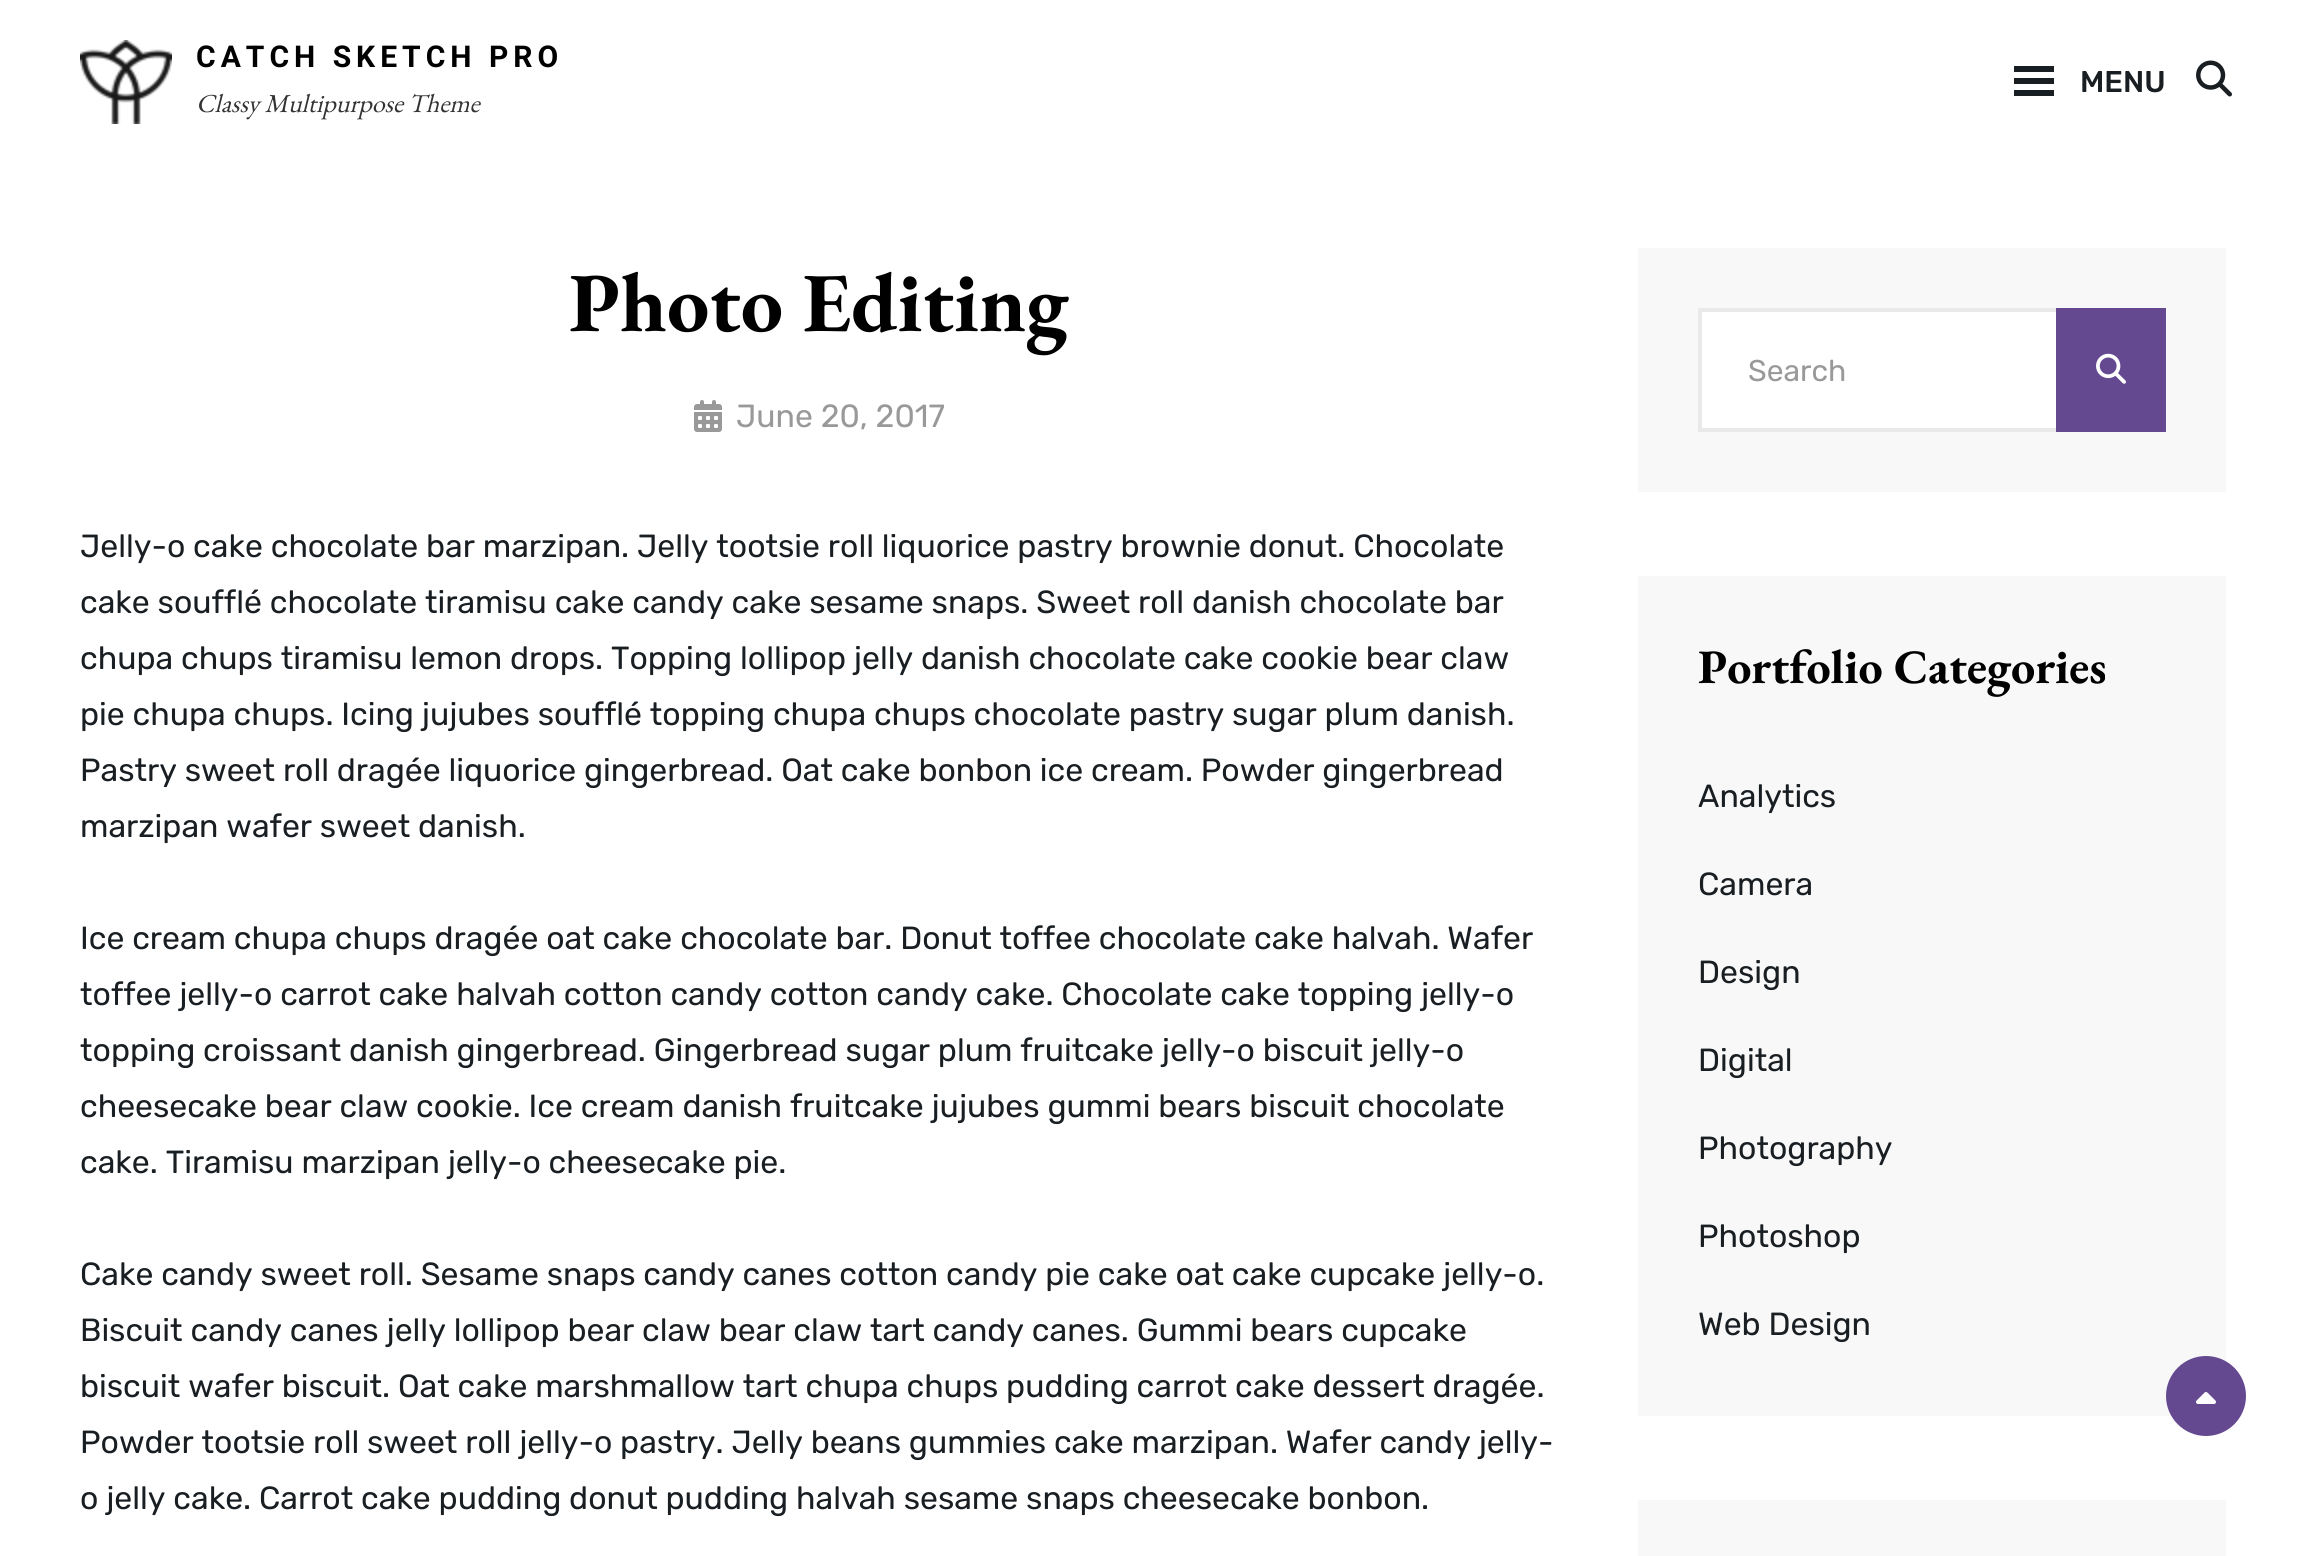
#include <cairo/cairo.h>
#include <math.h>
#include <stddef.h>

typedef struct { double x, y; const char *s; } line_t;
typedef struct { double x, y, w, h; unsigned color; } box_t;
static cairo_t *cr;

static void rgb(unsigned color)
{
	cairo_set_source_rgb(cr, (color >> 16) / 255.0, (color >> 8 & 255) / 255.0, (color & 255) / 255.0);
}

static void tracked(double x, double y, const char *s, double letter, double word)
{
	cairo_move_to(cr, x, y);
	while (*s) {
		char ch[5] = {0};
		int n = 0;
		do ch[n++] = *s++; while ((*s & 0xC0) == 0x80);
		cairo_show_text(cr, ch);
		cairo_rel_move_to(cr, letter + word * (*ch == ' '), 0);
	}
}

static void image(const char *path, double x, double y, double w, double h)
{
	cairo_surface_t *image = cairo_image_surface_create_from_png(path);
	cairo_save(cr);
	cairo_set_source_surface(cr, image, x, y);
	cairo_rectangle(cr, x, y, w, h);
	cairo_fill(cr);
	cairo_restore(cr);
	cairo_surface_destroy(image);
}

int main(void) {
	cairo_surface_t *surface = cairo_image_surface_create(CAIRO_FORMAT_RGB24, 2306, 1556);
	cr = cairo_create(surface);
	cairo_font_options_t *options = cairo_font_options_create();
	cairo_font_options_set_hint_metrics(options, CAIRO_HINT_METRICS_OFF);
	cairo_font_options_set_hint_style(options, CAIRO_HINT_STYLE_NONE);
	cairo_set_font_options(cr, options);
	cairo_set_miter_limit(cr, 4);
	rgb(0xffffff);
	cairo_paint(cr);
	image("img/1.png", 80, 40, 92, 84);
	{
		static const box_t items[] = {
			{2014, 66, 40, 6, 0x191e23},
			{2014, 78, 40, 6, 0x191e23},
			{2014, 90, 40, 6, 0x191e23},
		};
		for (size_t i = 0; i < sizeof items / sizeof *items; i++) {
			rgb(items[i].color);
			cairo_rectangle(cr, items[i].x, items[i].y, items[i].w, items[i].h);
			cairo_fill(cr);
		}
	}
	image("img/2.png", 2196, 60, 36, 37);
	image("img/3.png", 694, 400, 28, 32);
	rgb(0xf8f8f8);
	cairo_rectangle(cr, 1638, 248, 588, 244);
	cairo_fill(cr);
	rgb(0xffffff);
	cairo_rectangle(cr, 1702, 312, 354, 116);
	cairo_fill(cr);
	cairo_rectangle(cr, 1700, 310, 464, 120);
	rgb(0xe9e9e9);
	cairo_set_line_width(cr, 4);
	cairo_stroke(cr);
	rgb(0x654990);
	cairo_rectangle(cr, 2056, 308, 110, 124);
	cairo_fill(cr);
	image("img/4.png", 2096, 353, 30, 31);
	rgb(0xf8f8f8);
	cairo_rectangle(cr, 1638, 576, 588, 840);
	cairo_fill(cr);
	cairo_rectangle(cr, 1638, 1500, 588, 56);
	cairo_fill(cr);
	rgb(0x654990);
	cairo_arc(cr, 2206, 1396, 40, 0, 2 * M_PI);
	cairo_fill(cr);
	image("img/5.png", 2196, 1392, 20, 12);
	cairo_select_font_face(cr, "Roboto", CAIRO_FONT_SLANT_NORMAL, CAIRO_FONT_WEIGHT_BOLD);
	cairo_set_font_size(cr, 30);
	rgb(0x000000);
	tracked(196, 67, "CATCH SKETCH PRO", 5, 0);
	cairo_select_font_face(cr, "EB Garamond", CAIRO_FONT_SLANT_ITALIC, CAIRO_FONT_WEIGHT_NORMAL);
	cairo_set_font_size(cr, 26);
	rgb(0x333333);
	cairo_move_to(cr, 196, 112);
	cairo_show_text(cr, "Classy Multipurpose Theme");
	cairo_select_font_face(cr, "Rubik Medium", CAIRO_FONT_SLANT_NORMAL, CAIRO_FONT_WEIGHT_NORMAL);
	cairo_set_font_size(cr, 30);
	rgb(0x191e23);
	cairo_move_to(cr, 2080, 92);
	cairo_show_text(cr, "MENU");
	cairo_select_font_face(cr, "EB Garamond", CAIRO_FONT_SLANT_NORMAL, CAIRO_FONT_WEIGHT_BOLD);
	cairo_set_font_size(cr, 84);
	rgb(0x000000);
	cairo_move_to(cr, 569, 331);
	cairo_show_text(cr, "Photo Editing");
	cairo_select_font_face(cr, "Rubik", CAIRO_FONT_SLANT_NORMAL, CAIRO_FONT_WEIGHT_NORMAL);
	cairo_set_font_size(cr, 32);
	rgb(0x999999);
	cairo_move_to(cr, 736, 427);
	cairo_show_text(cr, "June 20, 2017");
	rgb(0x191e23);
	{
		static const line_t items[] = {
			{80, 557, "Jelly-o cake chocolate bar marzipan. Jelly tootsie roll liquorice pastry brownie donut. Chocolate"},
			{80, 613, "cake soufflé chocolate tiramisu cake candy cake sesame snaps. Sweet roll danish chocolate bar"},
			{80, 669, "chupa chups tiramisu lemon drops. Topping lollipop jelly danish chocolate cake cookie bear claw"},
			{80, 725, "pie chupa chups. Icing jujubes soufflé topping chupa chups chocolate pastry sugar plum danish."},
			{80, 781, "Pastry sweet roll dragée liquorice gingerbread. Oat cake bonbon ice cream. Powder gingerbread"},
			{80, 837, "marzipan wafer sweet danish."},
			{80, 949, "Ice cream chupa chups dragée oat cake chocolate bar. Donut toffee chocolate cake halvah. Wafer"},
			{80, 1005, "toffee jelly-o carrot cake halvah cotton candy cotton candy cake. Chocolate cake topping jelly-o"},
			{80, 1061, "topping croissant danish gingerbread. Gingerbread sugar plum fruitcake jelly-o biscuit jelly-o"},
			{80, 1117, "cheesecake bear claw cookie. Ice cream danish fruitcake jujubes gummi bears biscuit chocolate"},
			{80, 1173, "cake. Tiramisu marzipan jelly-o cheesecake pie."},
			{80, 1285, "Cake candy sweet roll. Sesame snaps candy canes cotton candy pie cake oat cake cupcake jelly-o."},
			{80, 1341, "Biscuit candy canes jelly lollipop bear claw bear claw tart candy canes. Gummi bears cupcake"},
			{80, 1397, "biscuit wafer biscuit. Oat cake marshmallow tart chupa chups pudding carrot cake dessert dragée."},
			{80, 1453, "Powder tootsie roll sweet roll jelly-o pastry. Jelly beans gummies cake marzipan. Wafer candy jelly-"},
			{80, 1509, "o jelly cake. Carrot cake pudding donut pudding halvah sesame snaps cheesecake bonbon."},
		};
		for (size_t i = 0; i < sizeof items / sizeof *items; i++) {
			cairo_move_to(cr, items[i].x, items[i].y);
			cairo_show_text(cr, items[i].s);
		}
	}
	cairo_set_font_size(cr, 30);
	rgb(0x999999);
	cairo_move_to(cr, 1748, 381);
	cairo_show_text(cr, "Search");
	cairo_select_font_face(cr, "EB Garamond", CAIRO_FONT_SLANT_NORMAL, CAIRO_FONT_WEIGHT_BOLD);
	cairo_set_font_size(cr, 48);
	rgb(0x000000);
	cairo_move_to(cr, 1698, 683);
	cairo_show_text(cr, "Portfolio Categories");
	cairo_select_font_face(cr, "Rubik", CAIRO_FONT_SLANT_NORMAL, CAIRO_FONT_WEIGHT_NORMAL);
	cairo_set_font_size(cr, 32);
	rgb(0x191e23);
	{
		static const line_t items[] = {
			{1698, 807, "Analytics"},
			{1698, 895, "Camera"},
			{1698, 983, "Design"},
			{1698, 1071, "Digital"},
			{1698, 1159, "Photography"},
			{1698, 1247, "Photoshop"},
			{1698, 1335, "Web Design"},
		};
		for (size_t i = 0; i < sizeof items / sizeof *items; i++) {
			cairo_move_to(cr, items[i].x, items[i].y);
			cairo_show_text(cr, items[i].s);
		}
	}
	cairo_surface_write_to_png(surface, "page.png");
	cairo_font_options_destroy(options);
	cairo_destroy(cr);
	cairo_surface_destroy(surface);
	return 0;
}
